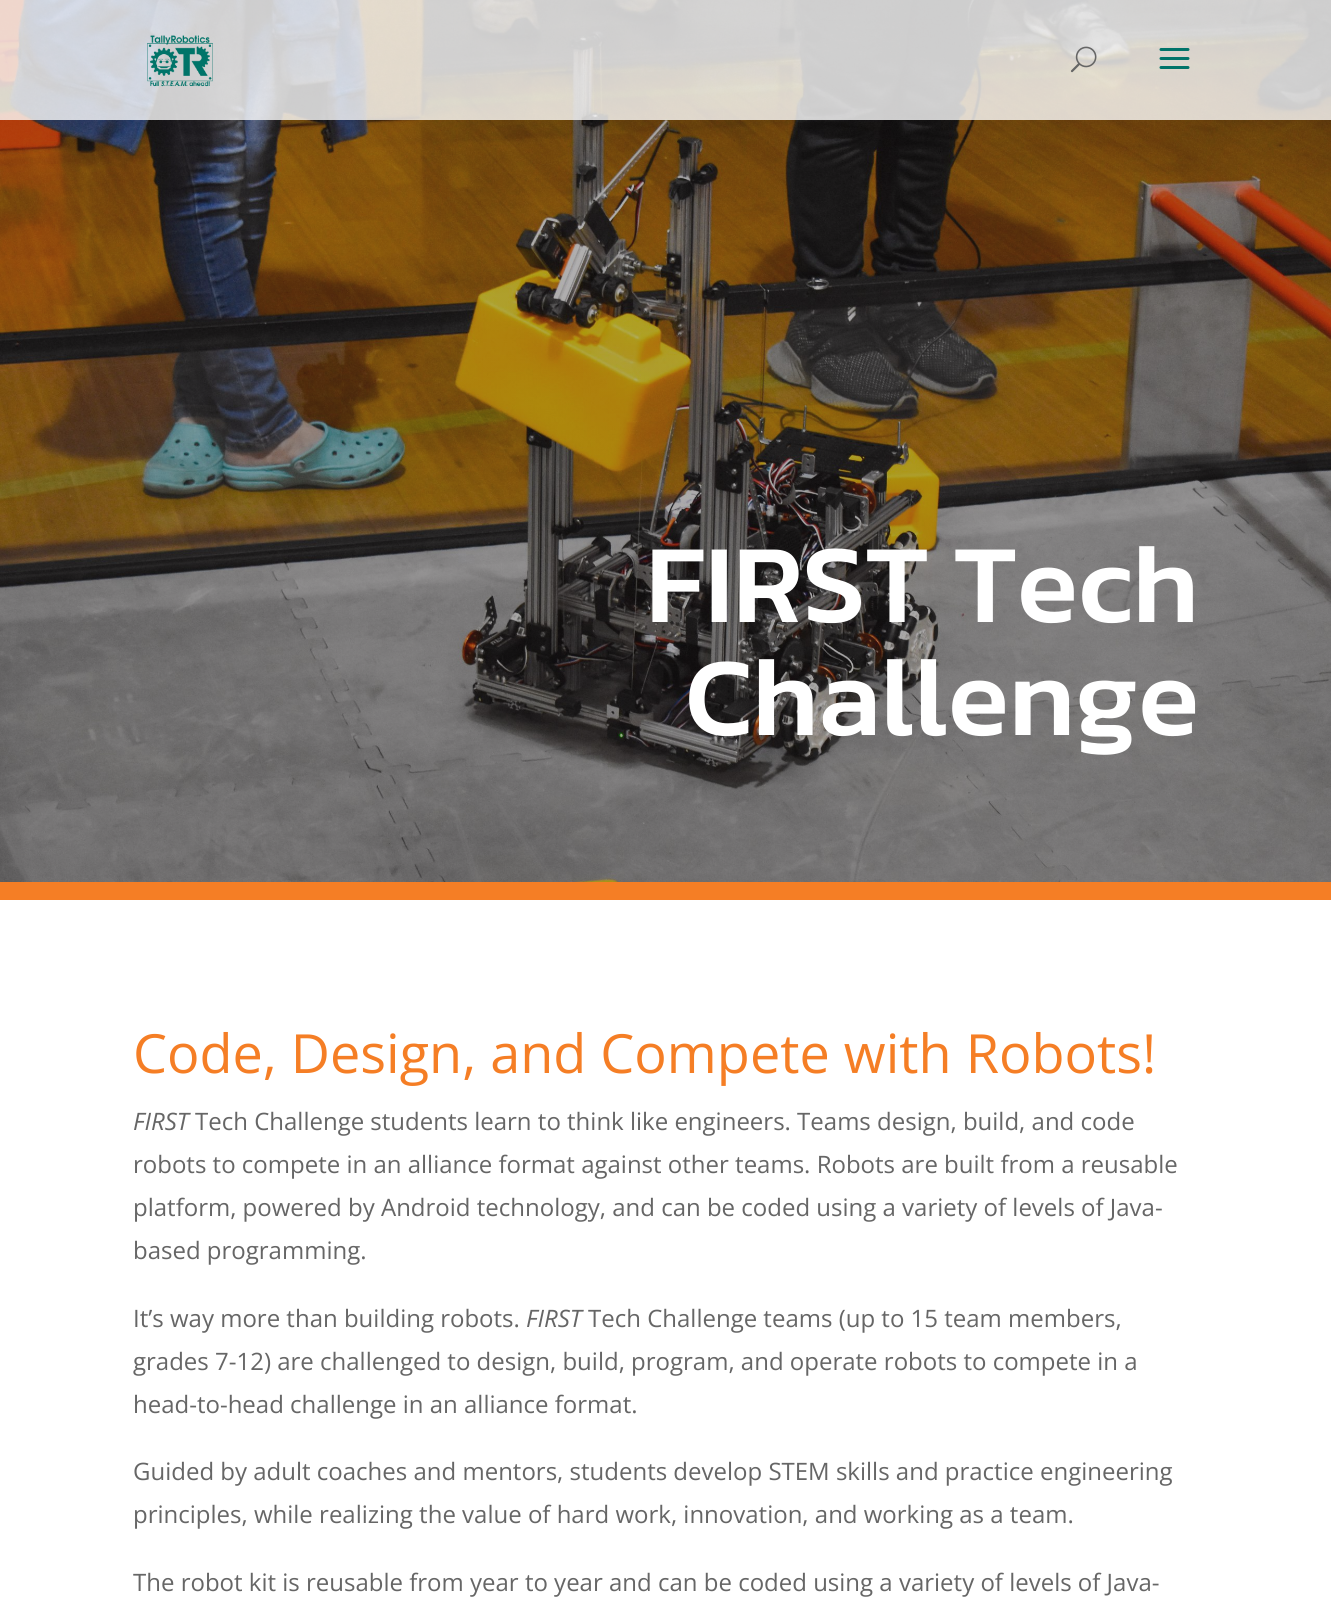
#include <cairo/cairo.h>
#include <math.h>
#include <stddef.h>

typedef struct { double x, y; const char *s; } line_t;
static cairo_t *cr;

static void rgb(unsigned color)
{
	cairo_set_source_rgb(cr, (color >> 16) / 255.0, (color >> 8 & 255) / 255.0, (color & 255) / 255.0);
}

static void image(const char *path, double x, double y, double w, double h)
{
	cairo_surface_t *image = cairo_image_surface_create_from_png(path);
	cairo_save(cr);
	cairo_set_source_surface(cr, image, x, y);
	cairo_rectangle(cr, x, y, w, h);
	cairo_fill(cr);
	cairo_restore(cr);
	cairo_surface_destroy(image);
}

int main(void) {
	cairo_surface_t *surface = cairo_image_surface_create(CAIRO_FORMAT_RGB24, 1331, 1602);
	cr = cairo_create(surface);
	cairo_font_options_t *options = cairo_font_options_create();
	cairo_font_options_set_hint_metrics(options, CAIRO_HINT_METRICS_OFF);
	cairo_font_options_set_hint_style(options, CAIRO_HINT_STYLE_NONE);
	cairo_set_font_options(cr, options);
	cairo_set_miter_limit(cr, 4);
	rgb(0xffffff);
	cairo_paint(cr);
	image("img/4.png", 0, 0, 1331, 882);
	cairo_set_source_rgba(cr, 1, 1, 1, 0.79);
	cairo_rectangle(cr, 0, 0, 1331, 120);
	cairo_fill(cr);
	image("img/1.png", 147, 35, 66, 52);
	image("img/2.png", 1070, 46, 27, 27);
	image("img/3.png", 1159, 48, 31, 21);
	rgb(0xf57e25);
	cairo_rectangle(cr, 0, 882, 1331, 18);
	cairo_fill(cr);
	cairo_select_font_face(cr, "Kanit Medium", CAIRO_FONT_SLANT_NORMAL, CAIRO_FONT_WEIGHT_NORMAL);
	cairo_set_font_size(cr, 112.5);
	rgb(0xffffff);
	cairo_move_to(cr, 646, 622);
	cairo_show_text(cr, "FIRST Tech");
	cairo_move_to(cr, 685, 735);
	cairo_show_text(cr, "Challenge");
	cairo_select_font_face(cr, "Open Sans", CAIRO_FONT_SLANT_NORMAL, CAIRO_FONT_WEIGHT_NORMAL);
	cairo_set_font_size(cr, 54);
	rgb(0xf57e25);
	cairo_move_to(cr, 133, 1073);
	cairo_show_text(cr, "Code, Design, and Compete with Robots!");
	cairo_select_font_face(cr, "Open Sans", CAIRO_FONT_SLANT_ITALIC, CAIRO_FONT_WEIGHT_NORMAL);
	cairo_set_font_size(cr, 24);
	rgb(0x666666);
	cairo_move_to(cr, 133, 1130);
	cairo_show_text(cr, "FIRST");
	cairo_select_font_face(cr, "Open Sans", CAIRO_FONT_SLANT_NORMAL, CAIRO_FONT_WEIGHT_NORMAL);
	{
		static const line_t items[] = {
			{195, 1130, "Tech Challenge students learn to think like engineers. Teams design, build, and code"},
			{133, 1173, "robots to compete in an alliance format against other teams. Robots are built from a reusable"},
			{133, 1216, "platform, powered by Android technology, and can be coded using a variety of levels of Java-"},
			{133, 1259, "based programming."},
			{133, 1327, "It’s way more than building robots."},
		};
		for (size_t i = 0; i < sizeof items / sizeof *items; i++) {
			cairo_move_to(cr, items[i].x, items[i].y);
			cairo_show_text(cr, items[i].s);
		}
	}
	cairo_select_font_face(cr, "Open Sans", CAIRO_FONT_SLANT_ITALIC, CAIRO_FONT_WEIGHT_NORMAL);
	cairo_move_to(cr, 526, 1327);
	cairo_show_text(cr, "FIRST");
	cairo_select_font_face(cr, "Open Sans", CAIRO_FONT_SLANT_NORMAL, CAIRO_FONT_WEIGHT_NORMAL);
	{
		static const line_t items[] = {
			{588, 1327, "Tech Challenge teams (up to 15 team members,"},
			{133, 1370, "grades 7-12) are challenged to design, build, program, and operate robots to compete in a"},
			{133, 1413, "head-to-head challenge in an alliance format."},
			{133, 1480, "Guided by adult coaches and mentors, students develop STEM skills and practice engineering"},
			{133, 1523, "principles, while realizing the value of hard work, innovation, and working as a team."},
			{133, 1591, "The robot kit is reusable from year to year and can be coded using a variety of levels of Java-"},
		};
		for (size_t i = 0; i < sizeof items / sizeof *items; i++) {
			cairo_move_to(cr, items[i].x, items[i].y);
			cairo_show_text(cr, items[i].s);
		}
	}
	cairo_surface_write_to_png(surface, "page.png");
	cairo_font_options_destroy(options);
	cairo_destroy(cr);
	cairo_surface_destroy(surface);
	return 0;
}
